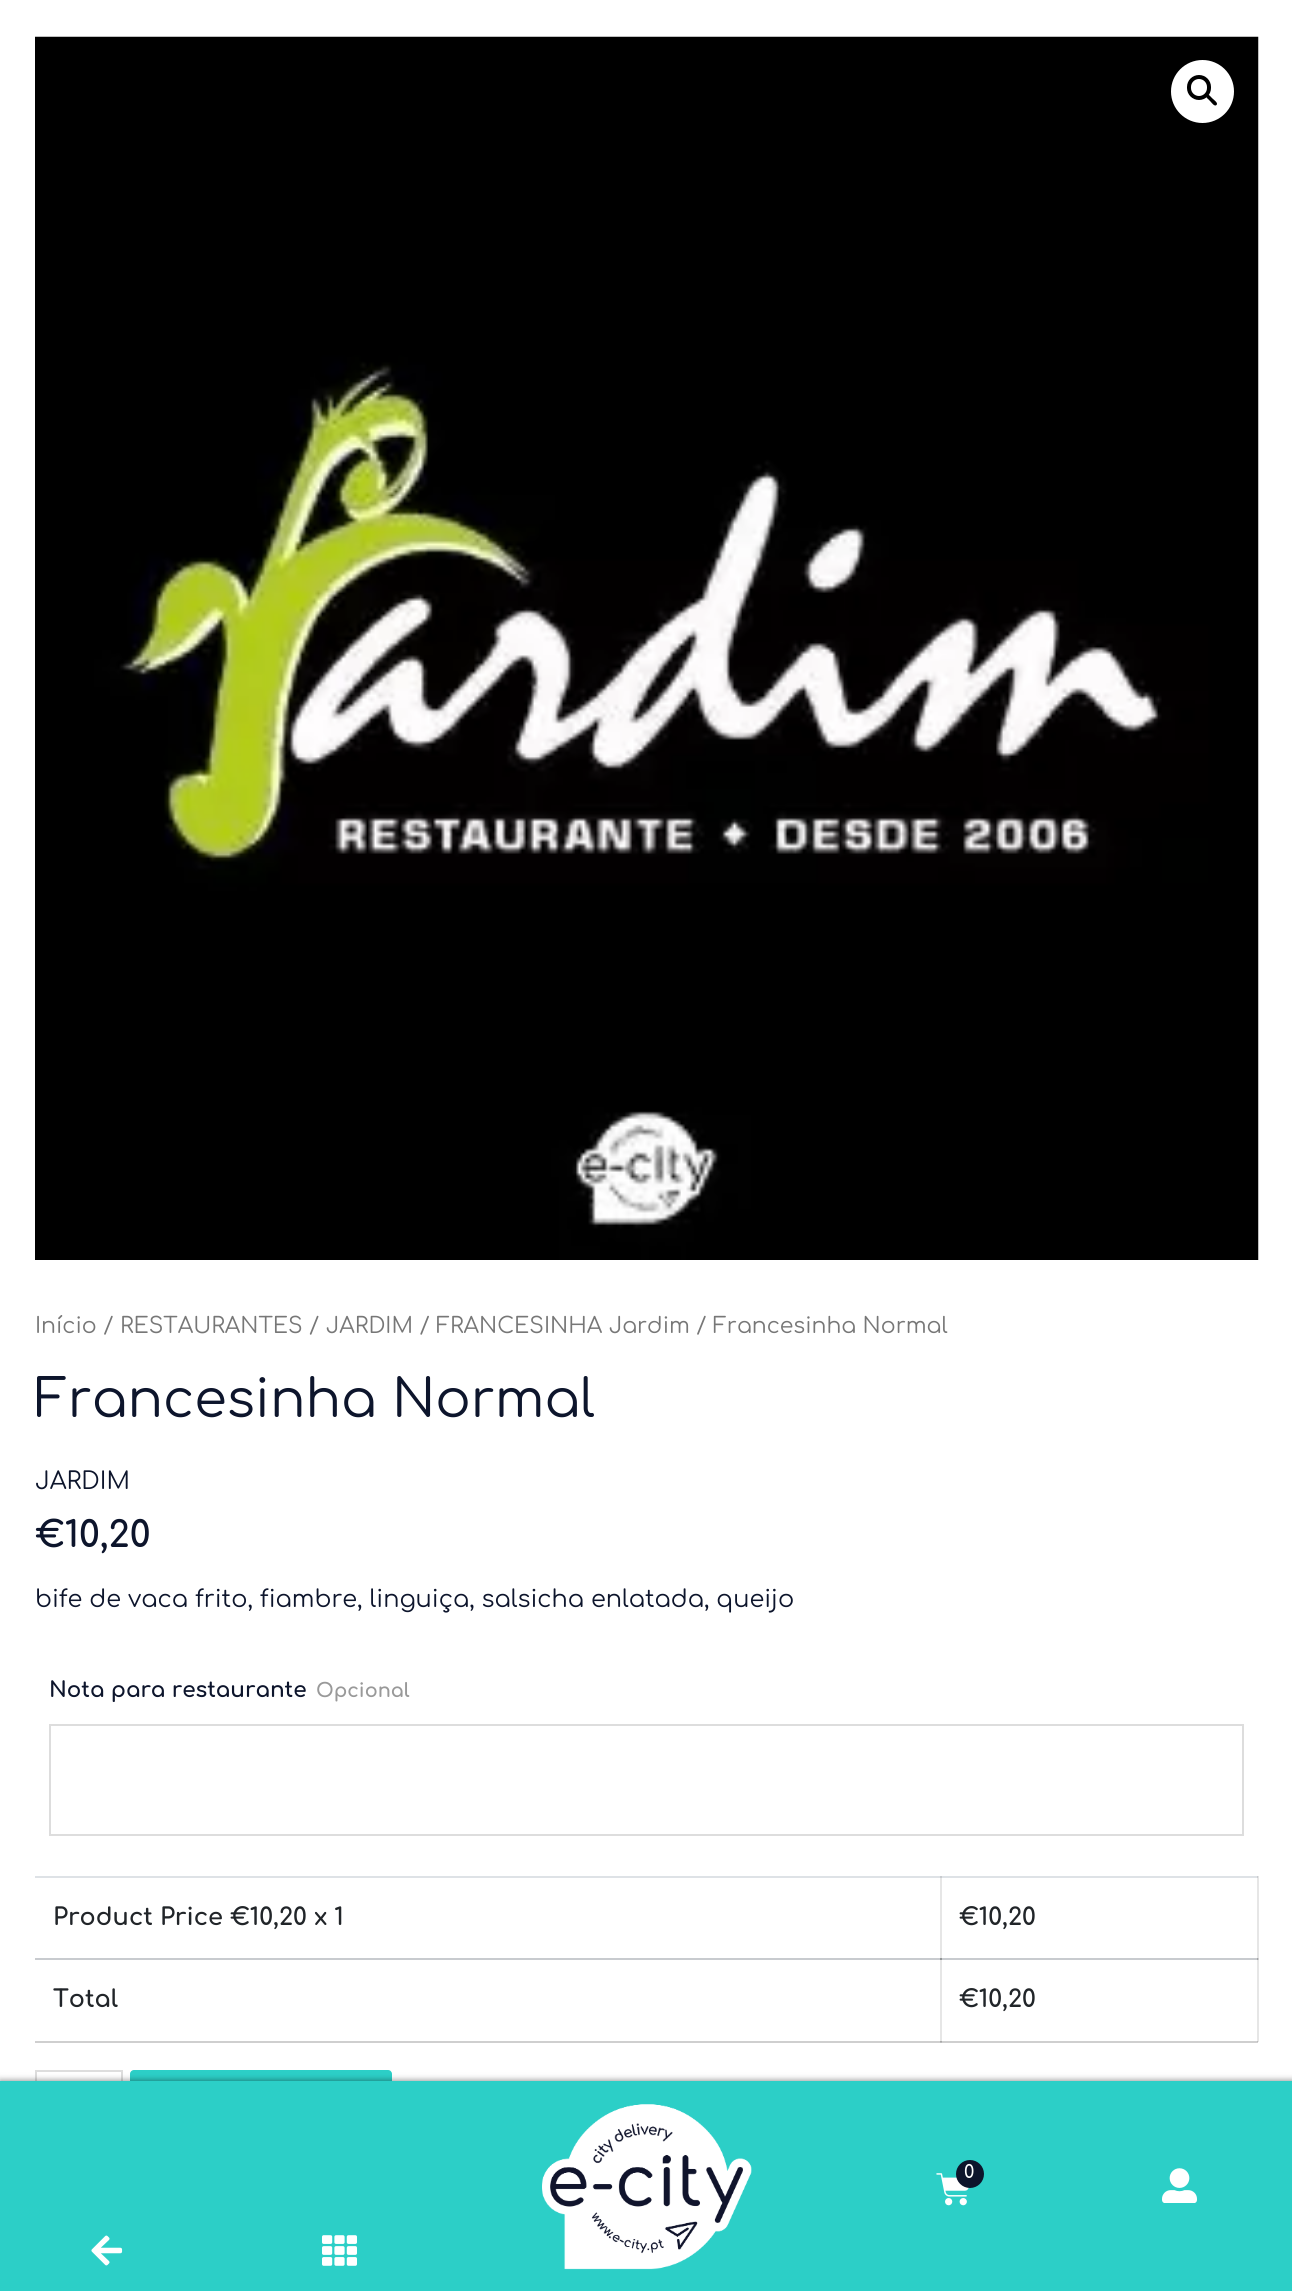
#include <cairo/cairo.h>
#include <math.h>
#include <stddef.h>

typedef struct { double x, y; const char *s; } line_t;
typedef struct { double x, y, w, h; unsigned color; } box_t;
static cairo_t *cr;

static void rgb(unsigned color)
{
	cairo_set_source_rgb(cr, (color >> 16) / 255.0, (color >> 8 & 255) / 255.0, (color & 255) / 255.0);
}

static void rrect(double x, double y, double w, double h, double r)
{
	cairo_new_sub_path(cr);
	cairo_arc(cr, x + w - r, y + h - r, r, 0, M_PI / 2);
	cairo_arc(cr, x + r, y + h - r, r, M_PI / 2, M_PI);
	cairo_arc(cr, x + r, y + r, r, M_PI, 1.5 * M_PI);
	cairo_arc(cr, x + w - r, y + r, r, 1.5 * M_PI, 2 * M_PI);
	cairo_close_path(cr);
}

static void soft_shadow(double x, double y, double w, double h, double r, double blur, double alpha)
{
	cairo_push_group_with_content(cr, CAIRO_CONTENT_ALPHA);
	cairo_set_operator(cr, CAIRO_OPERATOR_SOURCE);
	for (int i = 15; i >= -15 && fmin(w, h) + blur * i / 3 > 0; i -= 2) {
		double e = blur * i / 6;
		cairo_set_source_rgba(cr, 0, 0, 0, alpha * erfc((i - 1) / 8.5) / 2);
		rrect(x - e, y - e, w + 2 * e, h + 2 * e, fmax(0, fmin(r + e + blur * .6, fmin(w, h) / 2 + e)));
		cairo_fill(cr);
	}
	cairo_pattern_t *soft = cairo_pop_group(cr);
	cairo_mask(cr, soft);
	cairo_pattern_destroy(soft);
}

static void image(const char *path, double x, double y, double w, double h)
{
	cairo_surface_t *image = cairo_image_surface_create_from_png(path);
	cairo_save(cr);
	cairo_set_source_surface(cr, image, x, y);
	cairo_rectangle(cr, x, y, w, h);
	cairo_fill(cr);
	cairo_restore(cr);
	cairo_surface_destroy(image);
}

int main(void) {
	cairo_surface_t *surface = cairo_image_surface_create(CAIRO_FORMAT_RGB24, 1292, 2291);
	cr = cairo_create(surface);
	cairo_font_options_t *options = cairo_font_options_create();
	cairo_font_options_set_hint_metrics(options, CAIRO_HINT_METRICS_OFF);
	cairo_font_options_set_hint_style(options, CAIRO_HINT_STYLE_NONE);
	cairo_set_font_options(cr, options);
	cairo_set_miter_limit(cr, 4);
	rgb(0xffffff);
	cairo_paint(cr);
	{
		static const box_t items[] = {
			{940, 1876, 2, 166, 0xe6e6e6},
			{1257, 1876, 2, 166, 0xe6e6e6},
			{1257, 1958, 2, 2, 0xcfcfcf},
		};
		for (size_t i = 0; i < sizeof items / sizeof *items; i++) {
			rgb(items[i].color);
			cairo_rectangle(cr, items[i].x, items[i].y, items[i].w, items[i].h);
			cairo_fill(cr);
		}
	}
	image("img/1.png", 35, 36, 1224, 1224);
	rgb(0xffffff);
	cairo_arc(cr, 1202.5, 91.5, 31.5, 0, 2 * M_PI);
	cairo_fill(cr);
	rrect(1189, 77, 20, 21, 10);
	rgb(0x000000);
	cairo_set_line_width(cr, 4);
	cairo_stroke(cr);
	cairo_new_path(cr);
	cairo_move_to(cr, 1206.5, 95);
	cairo_curve_to(cr, 1208.5, 93, 1211.5, 98, 1213, 99);
	cairo_curve_to(cr, 1214, 100, 1218.5, 103, 1216.5, 105);
	cairo_curve_to(cr, 1214.5, 107, 1211.5, 102.5, 1210.5, 101.5);
	cairo_curve_to(cr, 1209.5, 100, 1204.5, 97, 1206.5, 95);
	cairo_close_path(cr);
	cairo_fill(cr);
	cairo_rectangle(cr, 50, 1725, 1193, 110);
	rgb(0xdddddd);
	cairo_set_line_width(cr, 2);
	cairo_stroke(cr);
	{
		static const box_t items[] = {
			{35, 2041, 1223, 2, 0xcfcfcf},
			{940, 2042, 2, 1, 0xbababa},
			{940, 2041, 2, 1, 0xa7a7a7},
			{1257, 2041, 1, 1, 0xbababa},
			{35, 1876, 1223, 2, 0xdee2e6},
			{940, 1876, 2, 2, 0xc8cbcf},
			{1257, 1876, 1, 2, 0xc8cbcf},
			{35, 1958, 1223, 2, 0xc8cbcf},
			{940, 1958, 2, 2, 0x929596},
			{1257, 1958, 1, 2, 0xa2a5a7},
		};
		for (size_t i = 0; i < sizeof items / sizeof *items; i++) {
			rgb(items[i].color);
			cairo_rectangle(cr, items[i].x, items[i].y, items[i].w, items[i].h);
			cairo_fill(cr);
		}
	}
	cairo_rectangle(cr, 36, 2071, 86, 60);
	rgb(0xdddddd);
	cairo_stroke(cr);
	rgb(0x2ccfc7);
	rrect(130, 2070, 262, 60, 4);
	cairo_fill(cr);
	rgb(0x000000);
	soft_shadow(0, 2081, 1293, 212, 0, 3.5, 0.5);
	rgb(0x2ccfc7);
	cairo_rectangle(cr, 0, 2081, 1292, 210);
	cairo_fill(cr);
	image("img/2.png", 542, 2104, 210, 166);
	image("img/3.png", 936, 2173, 33, 33);
	rgb(0x0d152c);
	cairo_arc(cr, 970, 2174, 14, 0, 2 * M_PI);
	cairo_fill(cr);
	image("img/4.png", 1162, 2168, 35, 35);
	image("img/5.png", 91, 2235, 32, 31);
	image("img/6.png", 322, 2235, 35, 31);
	cairo_select_font_face(cr, "Comfortaa", CAIRO_FONT_SLANT_NORMAL, CAIRO_FONT_WEIGHT_NORMAL);
	cairo_set_font_size(cr, 22);
	rgb(0x777777);
	cairo_move_to(cr, 35, 1333);
	cairo_show_text(cr, "Início / RESTAURANTES / JARDIM / FRANCESINHA Jardim / Francesinha Normal");
	cairo_set_font_size(cr, 52.5);
	rgb(0x0d152c);
	cairo_move_to(cr, 35, 1417);
	cairo_show_text(cr, "Francesinha Normal");
	cairo_set_font_size(cr, 23.95);
	cairo_move_to(cr, 35, 1489);
	cairo_show_text(cr, "JARDIM");
	cairo_select_font_face(cr, "Comfortaa", CAIRO_FONT_SLANT_NORMAL, CAIRO_FONT_WEIGHT_BOLD);
	cairo_set_font_size(cr, 36);
	cairo_move_to(cr, 35, 1547);
	cairo_show_text(cr, "€10,20");
	cairo_select_font_face(cr, "Comfortaa", CAIRO_FONT_SLANT_NORMAL, CAIRO_FONT_WEIGHT_NORMAL);
	cairo_set_font_size(cr, 23.95);
	cairo_move_to(cr, 35, 1607);
	cairo_show_text(cr, "bife de vaca frito, fiambre, linguiça, salsicha enlatada, queijo");
	cairo_select_font_face(cr, "Comfortaa", CAIRO_FONT_SLANT_NORMAL, CAIRO_FONT_WEIGHT_BOLD);
	cairo_set_font_size(cr, 21.5);
	cairo_move_to(cr, 49, 1697);
	cairo_show_text(cr, "Nota para restaurante");
	cairo_set_font_size(cr, 19.25);
	rgb(0x999999);
	cairo_move_to(cr, 316, 1697);
	cairo_show_text(cr, "Opcional");
	cairo_set_font_size(cr, 23.95);
	rgb(0x212529);
	{
		static const line_t items[] = {
			{53, 1925, "Product Price €10,20 x 1"},
			{959, 1925, "€10,20"},
			{53, 2007, "Total"},
			{959, 2007, "€10,20"},
		};
		for (size_t i = 0; i < sizeof items / sizeof *items; i++) {
			cairo_move_to(cr, items[i].x, items[i].y);
			cairo_show_text(cr, items[i].s);
		}
	}
	cairo_select_font_face(cr, "Comfortaa SemiBold", CAIRO_FONT_SLANT_NORMAL, CAIRO_FONT_WEIGHT_NORMAL);
	cairo_set_font_size(cr, 18);
	rgb(0xffffff);
	cairo_move_to(cr, 964, 2178);
	cairo_show_text(cr, "0");
	cairo_surface_write_to_png(surface, "page.png");
	cairo_font_options_destroy(options);
	cairo_destroy(cr);
	cairo_surface_destroy(surface);
	return 0;
}
